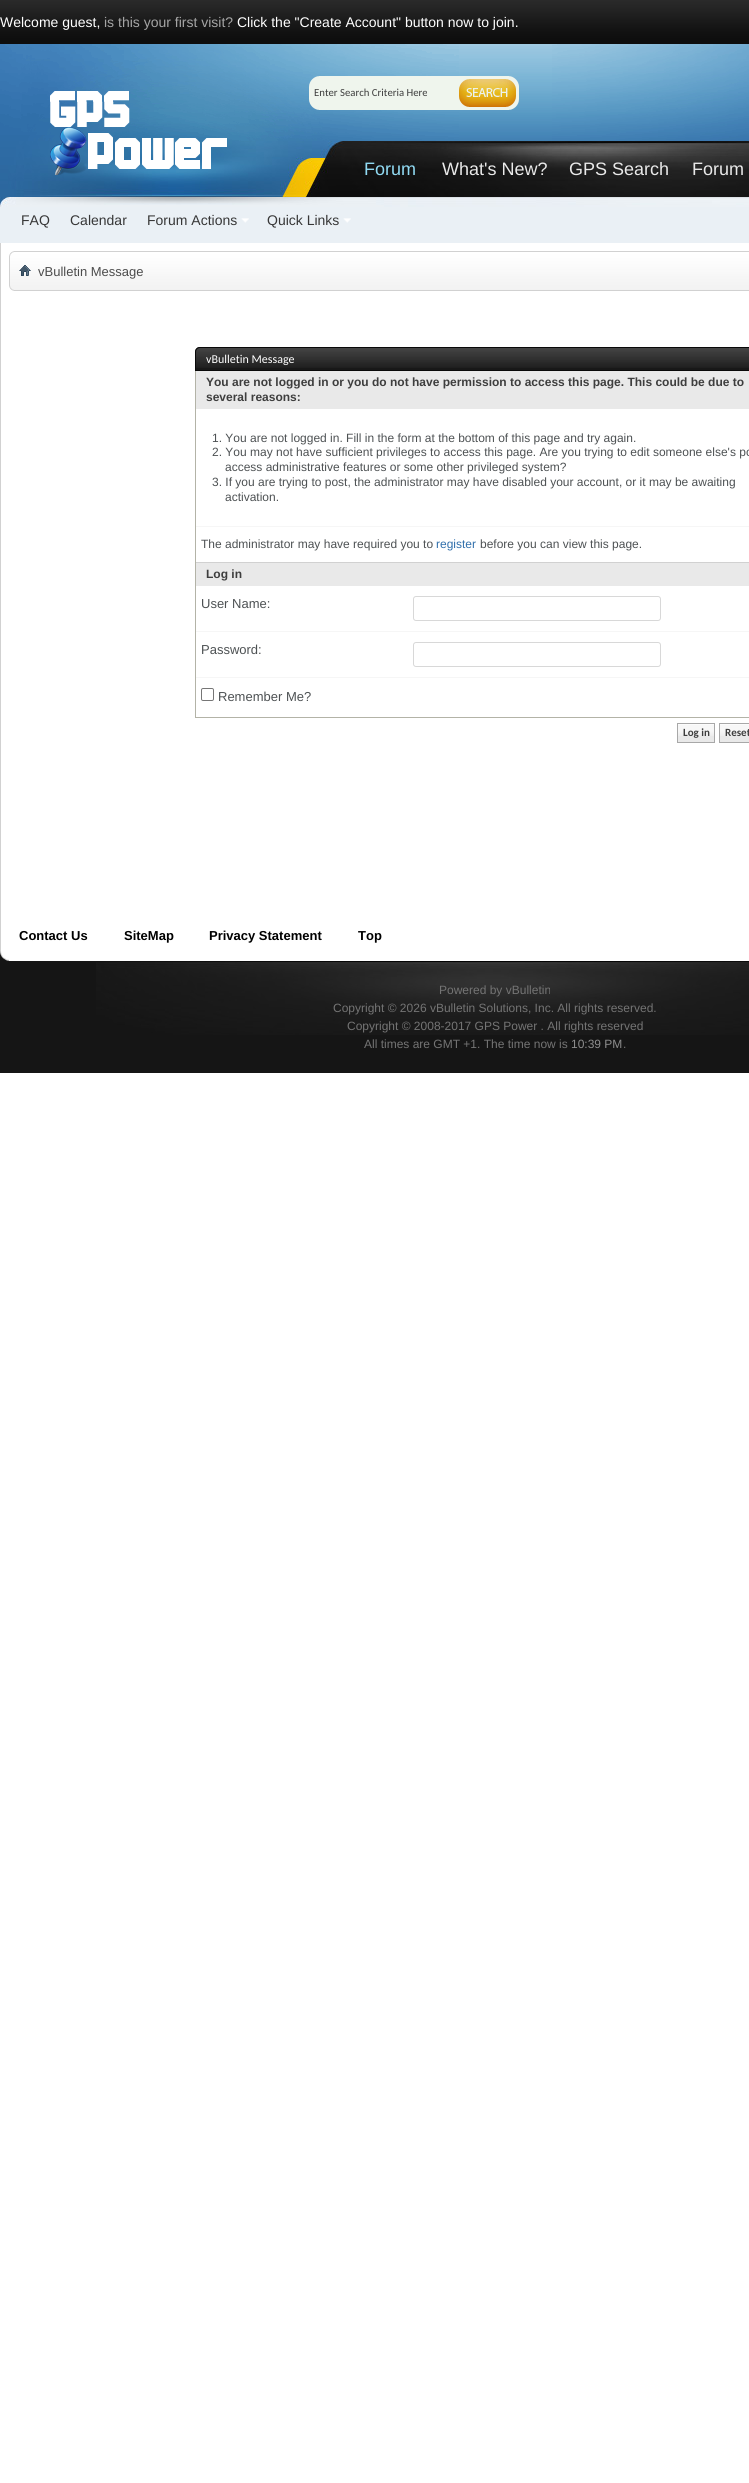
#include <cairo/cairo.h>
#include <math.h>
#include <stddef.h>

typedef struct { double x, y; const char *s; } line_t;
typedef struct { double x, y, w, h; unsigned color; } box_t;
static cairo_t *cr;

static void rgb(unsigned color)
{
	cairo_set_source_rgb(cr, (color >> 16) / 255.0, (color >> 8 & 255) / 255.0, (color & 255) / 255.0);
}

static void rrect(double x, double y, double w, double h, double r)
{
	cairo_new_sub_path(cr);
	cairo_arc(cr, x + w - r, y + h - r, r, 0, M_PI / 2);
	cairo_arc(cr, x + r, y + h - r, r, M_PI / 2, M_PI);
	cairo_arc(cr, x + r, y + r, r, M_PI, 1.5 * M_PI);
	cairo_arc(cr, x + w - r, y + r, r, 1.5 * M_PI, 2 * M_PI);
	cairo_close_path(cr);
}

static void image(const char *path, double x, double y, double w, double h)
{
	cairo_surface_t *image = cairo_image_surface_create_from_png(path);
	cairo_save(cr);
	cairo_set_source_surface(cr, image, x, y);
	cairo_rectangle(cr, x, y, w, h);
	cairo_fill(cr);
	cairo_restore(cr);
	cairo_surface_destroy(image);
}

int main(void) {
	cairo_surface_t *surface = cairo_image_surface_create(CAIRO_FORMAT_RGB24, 749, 2483);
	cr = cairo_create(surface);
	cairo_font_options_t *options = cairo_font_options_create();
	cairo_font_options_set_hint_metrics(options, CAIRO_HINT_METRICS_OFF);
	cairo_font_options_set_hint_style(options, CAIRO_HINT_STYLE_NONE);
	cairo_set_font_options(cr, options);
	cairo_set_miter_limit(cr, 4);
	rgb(0xffffff);
	cairo_paint(cr);
	image("img/1.png", 0, 0, 749, 44);
	rgb(0x151515);
	cairo_rectangle(cr, 0, 961, 749, 112);
	cairo_fill(cr);
	image("img/2.png", 0, 44, 749, 199);
	image("img/3.png", 0, 44, 459, 97);
	image("img/4.png", 552, 44, 197, 97);
	image("img/8.png", 0, 141, 749, 66);
	image("img/5.png", 50, 91, 177, 84);
	image("img/6.png", 309, 76, 150, 34);
	image("img/7.png", 459, 76, 60, 34);
	image("img/9.png", 241, 218, 8, 5);
	image("img/9.png", 343, 218, 8, 5);
	rgb(0xd1d1d1);
	cairo_rectangle(cr, 0, 243, 1, 708);
	cairo_fill(cr);
	image("img/10.png", 14, 251, 735, 40);
	image("img/11.png", 9, 251, 5, 40);
	image("img/12.png", 19, 265, 12, 11);
	rgb(0x181818);
	cairo_new_path(cr);
	cairo_move_to(cr, 200, 347);
	cairo_line_to(cr, 749, 347);
	cairo_curve_to(cr, 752, 347, 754, 349, 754, 352);
	cairo_line_to(cr, 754, 371);
	cairo_line_to(cr, 195, 371);
	cairo_line_to(cr, 195, 352);
	cairo_curve_to(cr, 195, 349, 197, 347, 200, 347);
	cairo_close_path(cr);
	cairo_fill(cr);
	image("img/13.png", 195, 348, 554, 20);
	cairo_new_path(cr);
	cairo_move_to(cr, 200, 347.5);
	cairo_line_to(cr, 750, 347.5);
	cairo_curve_to(cr, 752.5, 347.5, 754.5, 349.5, 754.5, 352);
	cairo_line_to(cr, 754.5, 370.5);
	cairo_line_to(cr, 195.5, 370.5);
	cairo_line_to(cr, 195.5, 352);
	cairo_curve_to(cr, 195.5, 349.5, 197.5, 347.5, 200, 347.5);
	cairo_close_path(cr);
	rgb(0x090909);
	cairo_set_line_width(cr, 1);
	cairo_stroke(cr);
	{
		static const box_t items[] = {
			{195, 717, 554, 1, 0xb3b3a7},
			{195, 371, 1, 347, 0xb3b3a7},
			{196, 371, 553, 38, 0xe9e9e9},
			{196, 526, 553, 1, 0xf6f6f6},
			{196, 563, 553, 23, 0xe9e9e9},
			{196, 562, 553, 1, 0xd1d1d1},
		};
		for (size_t i = 0; i < sizeof items / sizeof *items; i++) {
			rgb(items[i].color);
			cairo_rectangle(cr, items[i].x, items[i].y, items[i].w, items[i].h);
			cairo_fill(cr);
		}
	}
	rrect(413.5, 596.5, 247, 24, 2.5);
	rgb(0xd8d8d8);
	cairo_stroke(cr);
	rgb(0xf6f6f6);
	cairo_rectangle(cr, 196, 631, 553, 1);
	cairo_fill(cr);
	rrect(413.5, 642.5, 247, 24, 2.5);
	rgb(0xd8d8d8);
	cairo_stroke(cr);
	rgb(0xf6f6f6);
	cairo_rectangle(cr, 196, 677, 553, 1);
	cairo_fill(cr);
	rrect(201.5, 688.5, 12, 12, 1.5);
	rgb(0x767676);
	cairo_stroke(cr);
	rgb(0xe9e9e9);
	cairo_rectangle(cr, 678, 724, 36, 18);
	cairo_fill(cr);
	image("img/14.png", 678, 724, 36, 12);
	cairo_rectangle(cr, 677.5, 723.5, 37, 19);
	rgb(0xa8a8a8);
	cairo_stroke(cr);
	rgb(0xe9e9e9);
	cairo_rectangle(cr, 720, 724, 29, 18);
	cairo_fill(cr);
	image("img/15.png", 720, 724, 29, 12);
	cairo_rectangle(cr, 719.5, 723.5, 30, 19);
	rgb(0xa8a8a8);
	cairo_stroke(cr);
	image("img/16.png", 0, 951, 9, 10);
	image("img/17.png", 96, 961, 653, 74);
	cairo_select_font_face(cr, "Liberation Sans", CAIRO_FONT_SLANT_NORMAL, CAIRO_FONT_WEIGHT_NORMAL);
	cairo_set_font_size(cr, 14);
	rgb(0xffffff);
	cairo_move_to(cr, 0, 27);
	cairo_show_text(cr, "Welcome guest,");
	rgb(0xa5a5a5);
	cairo_move_to(cr, 104, 27);
	cairo_show_text(cr, "is this your first visit?");
	rgb(0xffffff);
	cairo_move_to(cr, 237, 27);
	cairo_show_text(cr, "Click the \"Create Account\" button now to join.");
	cairo_select_font_face(cr, "Carlito", CAIRO_FONT_SLANT_NORMAL, CAIRO_FONT_WEIGHT_NORMAL);
	cairo_set_font_size(cr, 10.75);
	rgb(0x3e3e3e);
	cairo_move_to(cr, 314, 96);
	cairo_show_text(cr, "Enter Search Criteria Here");
	cairo_select_font_face(cr, "Liberation Sans", CAIRO_FONT_SLANT_NORMAL, CAIRO_FONT_WEIGHT_NORMAL);
	cairo_set_font_size(cr, 18);
	rgb(0x91dbf4);
	cairo_move_to(cr, 364, 175);
	cairo_show_text(cr, "Forum");
	rgb(0xe9e9e9);
	{
		static const line_t items[] = {
			{442, 175, "What's New?"},
			{569, 175, "GPS Search"},
			{692, 175, "Forum"},
		};
		for (size_t i = 0; i < sizeof items / sizeof *items; i++) {
			cairo_move_to(cr, items[i].x, items[i].y);
			cairo_show_text(cr, items[i].s);
		}
	}
	cairo_set_font_size(cr, 14);
	rgb(0x373737);
	{
		static const line_t items[] = {
			{21, 225, "FAQ"},
			{70, 225, "Calendar"},
			{147, 225, "Forum Actions"},
			{267, 225, "Quick Links"},
		};
		for (size_t i = 0; i < sizeof items / sizeof *items; i++) {
			cairo_move_to(cr, items[i].x, items[i].y);
			cairo_show_text(cr, items[i].s);
		}
	}
	cairo_set_font_size(cr, 13);
	rgb(0x4c4c4c);
	cairo_move_to(cr, 38, 276);
	cairo_show_text(cr, "vBulletin Message");
	cairo_select_font_face(cr, "Carlito", CAIRO_FONT_SLANT_NORMAL, CAIRO_FONT_WEIGHT_NORMAL);
	cairo_set_font_size(cr, 12);
	rgb(0xffffff);
	cairo_move_to(cr, 206, 363);
	cairo_show_text(cr, "vBulletin Message");
	cairo_select_font_face(cr, "Liberation Sans", CAIRO_FONT_SLANT_NORMAL, CAIRO_FONT_WEIGHT_BOLD);
	rgb(0x3e3e3e);
	cairo_move_to(cr, 206, 386);
	cairo_show_text(cr, "You are not logged in or you do not have permission to access this page. This could be due to");
	cairo_move_to(cr, 206, 401);
	cairo_show_text(cr, "several reasons:");
	cairo_select_font_face(cr, "Liberation Sans", CAIRO_FONT_SLANT_NORMAL, CAIRO_FONT_WEIGHT_NORMAL);
	rgb(0x4d5153);
	{
		static const line_t items[] = {
			{212, 442, "1. You are not logged in. Fill in the form at the bottom of this page and try again."},
			{212, 456, "2. You may not have sufficient privileges to access this page. Are you trying to edit someone else's po"},
			{225, 471, "access administrative features or some other privileged system?"},
			{212, 486, "3. If you are trying to post, the administrator may have disabled your account, or it may be awaiting"},
			{225, 501, "activation."},
			{201, 548, "The administrator may have required you to"},
		};
		for (size_t i = 0; i < sizeof items / sizeof *items; i++) {
			cairo_move_to(cr, items[i].x, items[i].y);
			cairo_show_text(cr, items[i].s);
		}
	}
	rgb(0x306fab);
	cairo_move_to(cr, 436, 548);
	cairo_show_text(cr, "register");
	rgb(0x4d5153);
	cairo_move_to(cr, 480, 548);
	cairo_show_text(cr, "before you can view this page.");
	cairo_select_font_face(cr, "Liberation Sans", CAIRO_FONT_SLANT_NORMAL, CAIRO_FONT_WEIGHT_BOLD);
	rgb(0x3e3e3e);
	cairo_move_to(cr, 206, 578);
	cairo_show_text(cr, "Log in");
	cairo_select_font_face(cr, "Liberation Sans", CAIRO_FONT_SLANT_NORMAL, CAIRO_FONT_WEIGHT_NORMAL);
	cairo_set_font_size(cr, 13);
	rgb(0x4d5153);
	{
		static const line_t items[] = {
			{201, 608, "User Name:"},
			{201, 654, "Password:"},
			{218, 701, "Remember Me?"},
		};
		for (size_t i = 0; i < sizeof items / sizeof *items; i++) {
			cairo_move_to(cr, items[i].x, items[i].y);
			cairo_show_text(cr, items[i].s);
		}
	}
	cairo_select_font_face(cr, "Carlito", CAIRO_FONT_SLANT_NORMAL, CAIRO_FONT_WEIGHT_BOLD);
	cairo_set_font_size(cr, 11);
	rgb(0x3e3e3e);
	cairo_move_to(cr, 683, 736);
	cairo_show_text(cr, "Log in");
	cairo_move_to(cr, 725, 736);
	cairo_show_text(cr, "Reset");
	cairo_select_font_face(cr, "Liberation Sans", CAIRO_FONT_SLANT_NORMAL, CAIRO_FONT_WEIGHT_BOLD);
	cairo_set_font_size(cr, 13);
	rgb(0x000000);
	{
		static const line_t items[] = {
			{19, 940, "Contact Us"},
			{124, 940, "SiteMap"},
			{209, 940, "Privacy Statement"},
			{358, 940, "Top"},
		};
		for (size_t i = 0; i < sizeof items / sizeof *items; i++) {
			cairo_move_to(cr, items[i].x, items[i].y);
			cairo_show_text(cr, items[i].s);
		}
	}
	cairo_select_font_face(cr, "Liberation Sans", CAIRO_FONT_SLANT_NORMAL, CAIRO_FONT_WEIGHT_NORMAL);
	cairo_set_font_size(cr, 12);
	rgb(0x747474);
	{
		static const line_t items[] = {
			{439, 994, "Powered by vBulletin"},
			{333, 1012, "Copyright © 2026 vBulletin Solutions, Inc. All rights reserved."},
			{347, 1030, "Copyright © 2008-2017 GPS Power . All rights reserved"},
			{364, 1048, "All times are GMT +1. The time now is"},
		};
		for (size_t i = 0; i < sizeof items / sizeof *items; i++) {
			cairo_move_to(cr, items[i].x, items[i].y);
			cairo_show_text(cr, items[i].s);
		}
	}
	rgb(0x8d8d8d);
	cairo_move_to(cr, 571, 1048);
	cairo_show_text(cr, "10:39 PM");
	rgb(0x747474);
	cairo_move_to(cr, 623, 1048);
	cairo_show_text(cr, ".");
	cairo_surface_write_to_png(surface, "page.png");
	cairo_font_options_destroy(options);
	cairo_destroy(cr);
	cairo_surface_destroy(surface);
	return 0;
}
